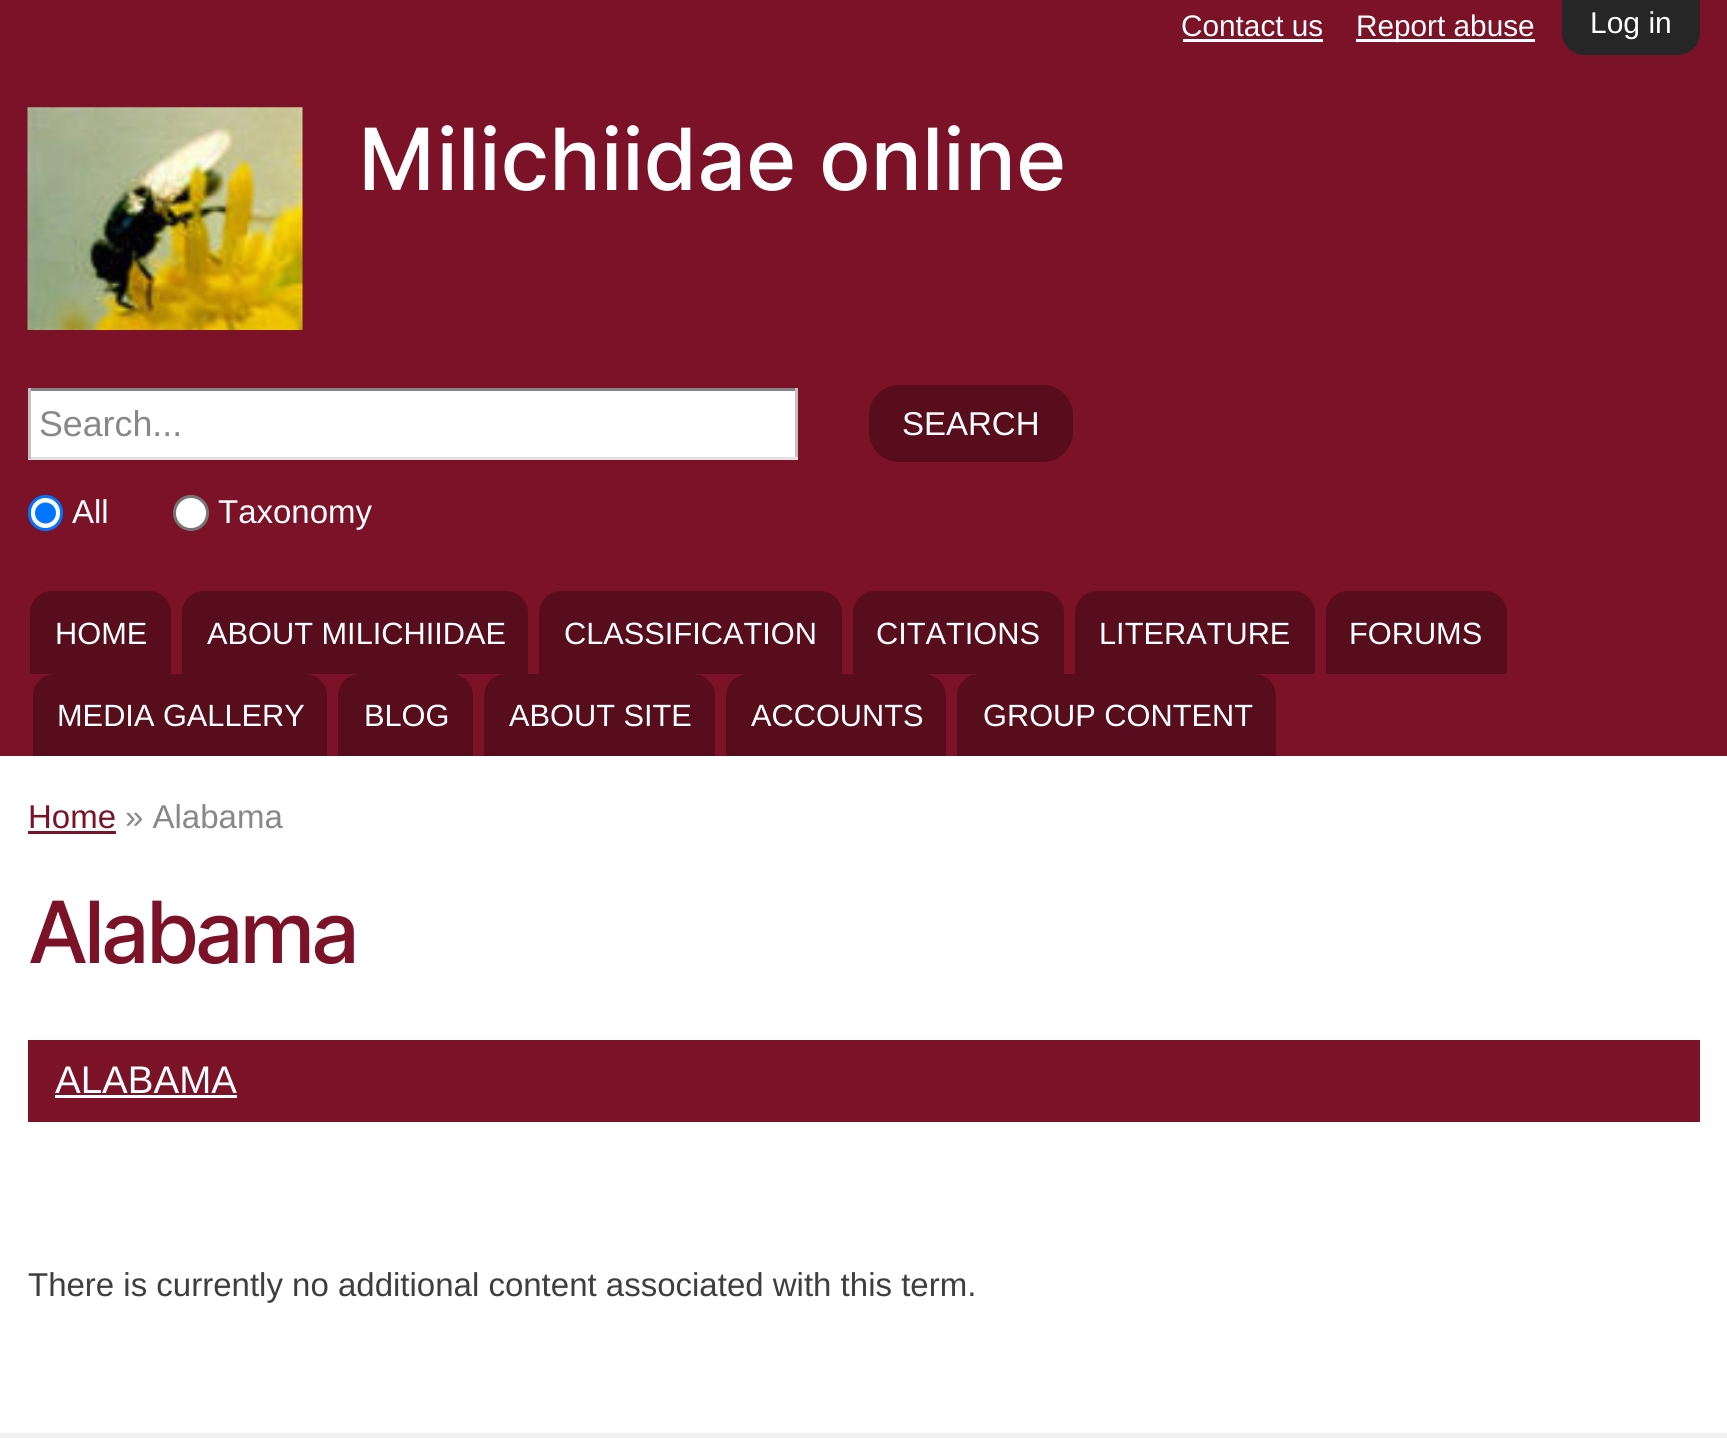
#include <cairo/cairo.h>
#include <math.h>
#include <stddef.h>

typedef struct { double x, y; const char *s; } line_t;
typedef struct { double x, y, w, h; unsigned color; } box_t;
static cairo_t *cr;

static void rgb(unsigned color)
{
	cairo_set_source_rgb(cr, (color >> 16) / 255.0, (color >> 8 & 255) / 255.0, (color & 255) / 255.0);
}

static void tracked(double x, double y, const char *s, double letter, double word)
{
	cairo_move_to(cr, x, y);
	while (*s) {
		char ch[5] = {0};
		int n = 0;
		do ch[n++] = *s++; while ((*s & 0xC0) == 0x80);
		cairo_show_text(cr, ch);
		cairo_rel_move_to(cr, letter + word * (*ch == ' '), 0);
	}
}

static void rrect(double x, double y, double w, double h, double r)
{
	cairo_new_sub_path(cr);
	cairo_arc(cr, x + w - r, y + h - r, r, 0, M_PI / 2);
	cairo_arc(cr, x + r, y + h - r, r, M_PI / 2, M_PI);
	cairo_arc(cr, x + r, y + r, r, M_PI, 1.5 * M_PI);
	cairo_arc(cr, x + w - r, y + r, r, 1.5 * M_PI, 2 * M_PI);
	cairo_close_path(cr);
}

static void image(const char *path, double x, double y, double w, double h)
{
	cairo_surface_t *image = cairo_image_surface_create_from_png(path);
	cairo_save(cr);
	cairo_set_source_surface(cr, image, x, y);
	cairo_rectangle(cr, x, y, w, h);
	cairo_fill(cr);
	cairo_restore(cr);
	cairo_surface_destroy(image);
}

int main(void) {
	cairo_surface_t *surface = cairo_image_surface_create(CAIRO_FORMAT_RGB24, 1727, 1438);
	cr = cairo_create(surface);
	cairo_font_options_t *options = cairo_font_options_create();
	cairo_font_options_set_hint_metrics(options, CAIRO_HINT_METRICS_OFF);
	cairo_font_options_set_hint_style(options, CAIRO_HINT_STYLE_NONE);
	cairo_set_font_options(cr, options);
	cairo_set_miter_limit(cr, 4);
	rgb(0xffffff);
	cairo_paint(cr);
	{
		static const box_t items[] = {
			{0, 0, 1727, 756, 0x7c1227},
			{1183, 39, 140, 3, 0xffffff},
			{1356, 39, 179, 3, 0xffffff},
		};
		for (size_t i = 0; i < sizeof items / sizeof *items; i++) {
			rgb(items[i].color);
			cairo_rectangle(cr, items[i].x, items[i].y, items[i].w, items[i].h);
			cairo_fill(cr);
		}
	}
	image("img/1.png", 27, 107, 276, 223);
	{
		static const box_t items[] = {
			{31, 391, 764, 66, 0xffffff},
			{28, 388, 770, 3, 0x848484},
			{795, 388, 3, 71, 0xc1c1c1},
			{28, 457, 770, 3, 0xe1e1e1},
			{28, 388, 3, 71, 0xc1c1c1},
		};
		for (size_t i = 0; i < sizeof items / sizeof *items; i++) {
			rgb(items[i].color);
			cairo_rectangle(cr, items[i].x, items[i].y, items[i].w, items[i].h);
			cairo_fill(cr);
		}
	}
	rgb(0x570d1b);
	rrect(869, 385, 204, 77, 30);
	cairo_fill(cr);
	rgb(0xffffff);
	rrect(29.5, 496.5, 32, 33, 16);
	cairo_fill_preserve(cr);
	rgb(0x0075ff);
	cairo_set_line_width(cr, 3);
	cairo_stroke(cr);
	cairo_arc(cr, 45.5, 513, 10.5, 0, 2 * M_PI);
	cairo_fill(cr);
	rgb(0xffffff);
	cairo_arc(cr, 191, 513, 16.5, 0, 2 * M_PI);
	cairo_fill_preserve(cr);
	rgb(0x767676);
	cairo_stroke(cr);
	rgb(0x570d1b);
	cairo_new_path(cr);
	cairo_move_to(cr, 52, 591);
	cairo_line_to(cr, 149, 591);
	cairo_curve_to(cr, 161, 591, 171, 601, 171, 613);
	cairo_line_to(cr, 171, 674);
	cairo_line_to(cr, 30, 674);
	cairo_line_to(cr, 30, 613);
	cairo_curve_to(cr, 30, 601, 40, 591, 52, 591);
	cairo_close_path(cr);
	cairo_fill(cr);
	cairo_new_path(cr);
	cairo_move_to(cr, 204, 591);
	cairo_line_to(cr, 506, 591);
	cairo_curve_to(cr, 518, 591, 528, 601, 528, 613);
	cairo_line_to(cr, 528, 674);
	cairo_line_to(cr, 182, 674);
	cairo_line_to(cr, 182, 613);
	cairo_curve_to(cr, 182, 601, 192, 591, 204, 591);
	cairo_close_path(cr);
	cairo_fill(cr);
	cairo_new_path(cr);
	cairo_move_to(cr, 561, 591);
	cairo_line_to(cr, 820, 591);
	cairo_curve_to(cr, 832, 591, 842, 601, 842, 613);
	cairo_line_to(cr, 842, 674);
	cairo_line_to(cr, 539, 674);
	cairo_line_to(cr, 539, 613);
	cairo_curve_to(cr, 539, 601, 549, 591, 561, 591);
	cairo_close_path(cr);
	cairo_fill(cr);
	cairo_new_path(cr);
	cairo_move_to(cr, 875, 591);
	cairo_line_to(cr, 1042, 591);
	cairo_curve_to(cr, 1054, 591, 1064, 601, 1064, 613);
	cairo_line_to(cr, 1064, 674);
	cairo_line_to(cr, 853, 674);
	cairo_line_to(cr, 853, 613);
	cairo_curve_to(cr, 853, 601, 863, 591, 875, 591);
	cairo_close_path(cr);
	cairo_fill(cr);
	cairo_new_path(cr);
	cairo_move_to(cr, 1097, 591);
	cairo_line_to(cr, 1293, 591);
	cairo_curve_to(cr, 1305, 591, 1315, 601, 1315, 613);
	cairo_line_to(cr, 1315, 674);
	cairo_line_to(cr, 1075, 674);
	cairo_line_to(cr, 1075, 613);
	cairo_curve_to(cr, 1075, 601, 1085, 591, 1097, 591);
	cairo_close_path(cr);
	cairo_fill(cr);
	cairo_new_path(cr);
	cairo_move_to(cr, 1348, 591);
	cairo_line_to(cr, 1485, 591);
	cairo_curve_to(cr, 1497, 591, 1507, 601, 1507, 613);
	cairo_line_to(cr, 1507, 674);
	cairo_line_to(cr, 1326, 674);
	cairo_line_to(cr, 1326, 613);
	cairo_curve_to(cr, 1326, 601, 1336, 591, 1348, 591);
	cairo_close_path(cr);
	cairo_fill(cr);
	cairo_new_path(cr);
	cairo_move_to(cr, 55, 674);
	cairo_line_to(cr, 305, 674);
	cairo_curve_to(cr, 317, 674, 327, 684, 327, 696);
	cairo_line_to(cr, 327, 756);
	cairo_line_to(cr, 33, 756);
	cairo_line_to(cr, 33, 696);
	cairo_curve_to(cr, 33, 684, 43, 674, 55, 674);
	cairo_close_path(cr);
	cairo_fill(cr);
	cairo_new_path(cr);
	cairo_move_to(cr, 360, 674);
	cairo_line_to(cr, 451, 674);
	cairo_curve_to(cr, 463, 674, 473, 684, 473, 696);
	cairo_line_to(cr, 473, 756);
	cairo_line_to(cr, 338, 756);
	cairo_line_to(cr, 338, 696);
	cairo_curve_to(cr, 338, 684, 348, 674, 360, 674);
	cairo_close_path(cr);
	cairo_fill(cr);
	cairo_new_path(cr);
	cairo_move_to(cr, 506, 674);
	cairo_line_to(cr, 693, 674);
	cairo_curve_to(cr, 705, 674, 715, 684, 715, 696);
	cairo_line_to(cr, 715, 756);
	cairo_line_to(cr, 484, 756);
	cairo_line_to(cr, 484, 696);
	cairo_curve_to(cr, 484, 684, 494, 674, 506, 674);
	cairo_close_path(cr);
	cairo_fill(cr);
	cairo_new_path(cr);
	cairo_move_to(cr, 748, 674);
	cairo_line_to(cr, 924, 674);
	cairo_curve_to(cr, 936, 674, 946, 684, 946, 696);
	cairo_line_to(cr, 946, 756);
	cairo_line_to(cr, 726, 756);
	cairo_line_to(cr, 726, 696);
	cairo_curve_to(cr, 726, 684, 736, 674, 748, 674);
	cairo_close_path(cr);
	cairo_fill(cr);
	cairo_new_path(cr);
	cairo_move_to(cr, 979, 674);
	cairo_line_to(cr, 1254, 674);
	cairo_curve_to(cr, 1266, 674, 1276, 684, 1276, 696);
	cairo_line_to(cr, 1276, 756);
	cairo_line_to(cr, 957, 756);
	cairo_line_to(cr, 957, 696);
	cairo_curve_to(cr, 957, 684, 967, 674, 979, 674);
	cairo_close_path(cr);
	cairo_fill(cr);
	rgb(0x262626);
	cairo_new_path(cr);
	cairo_move_to(cr, 1562, 0);
	cairo_line_to(cr, 1700, 0);
	cairo_line_to(cr, 1700, 33);
	cairo_curve_to(cr, 1700, 45, 1690, 55, 1678, 55);
	cairo_line_to(cr, 1584, 55);
	cairo_curve_to(cr, 1572, 55, 1562, 45, 1562, 33);
	cairo_close_path(cr);
	cairo_fill(cr);
	{
		static const box_t items[] = {
			{28, 831, 88, 3, 0x7c1227},
			{28, 1040, 1672, 82, 0x7c1227},
			{55, 1095, 182, 3, 0xffffff},
			{0, 1433, 1727, 5, 0xf1f1f1},
		};
		for (size_t i = 0; i < sizeof items / sizeof *items; i++) {
			rgb(items[i].color);
			cairo_rectangle(cr, items[i].x, items[i].y, items[i].w, items[i].h);
			cairo_fill(cr);
		}
	}
	cairo_select_font_face(cr, "Liberation Sans", CAIRO_FONT_SLANT_NORMAL, CAIRO_FONT_WEIGHT_NORMAL);
	cairo_set_font_size(cr, 29.75);
	rgb(0xffffff);
	cairo_move_to(cr, 1181, 36);
	cairo_show_text(cr, "Contact us");
	cairo_move_to(cr, 1356, 36);
	cairo_show_text(cr, "Report abuse");
	cairo_select_font_face(cr, "Inter Medium", CAIRO_FONT_SLANT_NORMAL, CAIRO_FONT_WEIGHT_NORMAL);
	cairo_set_font_size(cr, 85.75);
	cairo_move_to(cr, 358, 190);
	cairo_show_text(cr, "Milichiidae online");
	cairo_select_font_face(cr, "Liberation Sans", CAIRO_FONT_SLANT_NORMAL, CAIRO_FONT_WEIGHT_NORMAL);
	cairo_set_font_size(cr, 35.75);
	rgb(0x888888);
	cairo_move_to(cr, 39, 436);
	cairo_show_text(cr, "Search...");
	cairo_set_font_size(cr, 33);
	rgb(0xffffff);
	{
		static const line_t items[] = {
			{902, 435, "SEARCH"},
			{72, 523, "All"},
			{218, 523, "Taxonomy"},
		};
		for (size_t i = 0; i < sizeof items / sizeof *items; i++) {
			cairo_move_to(cr, items[i].x, items[i].y);
			cairo_show_text(cr, items[i].s);
		}
	}
	cairo_set_font_size(cr, 30.75);
	{
		static const line_t items[] = {
			{55, 644, "HOME"},
			{207, 644, "ABOUT MILICHIIDAE"},
			{564, 644, "CLASSIFICATION"},
			{876, 644, "CITATIONS"},
			{1099, 644, "LITERATURE"},
			{1349, 644, "FORUMS"},
			{57, 726, "MEDIA GALLERY"},
			{364, 726, "BLOG"},
			{509, 726, "ABOUT SITE"},
			{751, 726, "ACCOUNTS"},
			{983, 726, "GROUP CONTENT"},
		};
		for (size_t i = 0; i < sizeof items / sizeof *items; i++) {
			cairo_move_to(cr, items[i].x, items[i].y);
			cairo_show_text(cr, items[i].s);
		}
	}
	cairo_set_font_size(cr, 30);
	cairo_move_to(cr, 1590, 33);
	cairo_show_text(cr, "Log in");
	cairo_set_font_size(cr, 33);
	rgb(0x7c1227);
	cairo_move_to(cr, 28, 828);
	cairo_show_text(cr, "Home");
	rgb(0x888888);
	cairo_move_to(cr, 125, 828);
	cairo_show_text(cr, "» Alabama");
	cairo_select_font_face(cr, "Inter Medium", CAIRO_FONT_SLANT_NORMAL, CAIRO_FONT_WEIGHT_NORMAL);
	cairo_set_font_size(cr, 85.75);
	rgb(0x7c1227);
	tracked(28, 963, "Alabama", -4.25, 0);
	cairo_select_font_face(cr, "Liberation Sans", CAIRO_FONT_SLANT_NORMAL, CAIRO_FONT_WEIGHT_NORMAL);
	cairo_set_font_size(cr, 38.5);
	rgb(0xffffff);
	cairo_move_to(cr, 55, 1093);
	cairo_show_text(cr, "ALABAMA");
	cairo_set_font_size(cr, 33);
	rgb(0x3e3e3e);
	cairo_move_to(cr, 28, 1296);
	cairo_show_text(cr, "There is currently no additional content associated with this term.");
	cairo_surface_write_to_png(surface, "page.png");
	cairo_font_options_destroy(options);
	cairo_destroy(cr);
	cairo_surface_destroy(surface);
	return 0;
}
